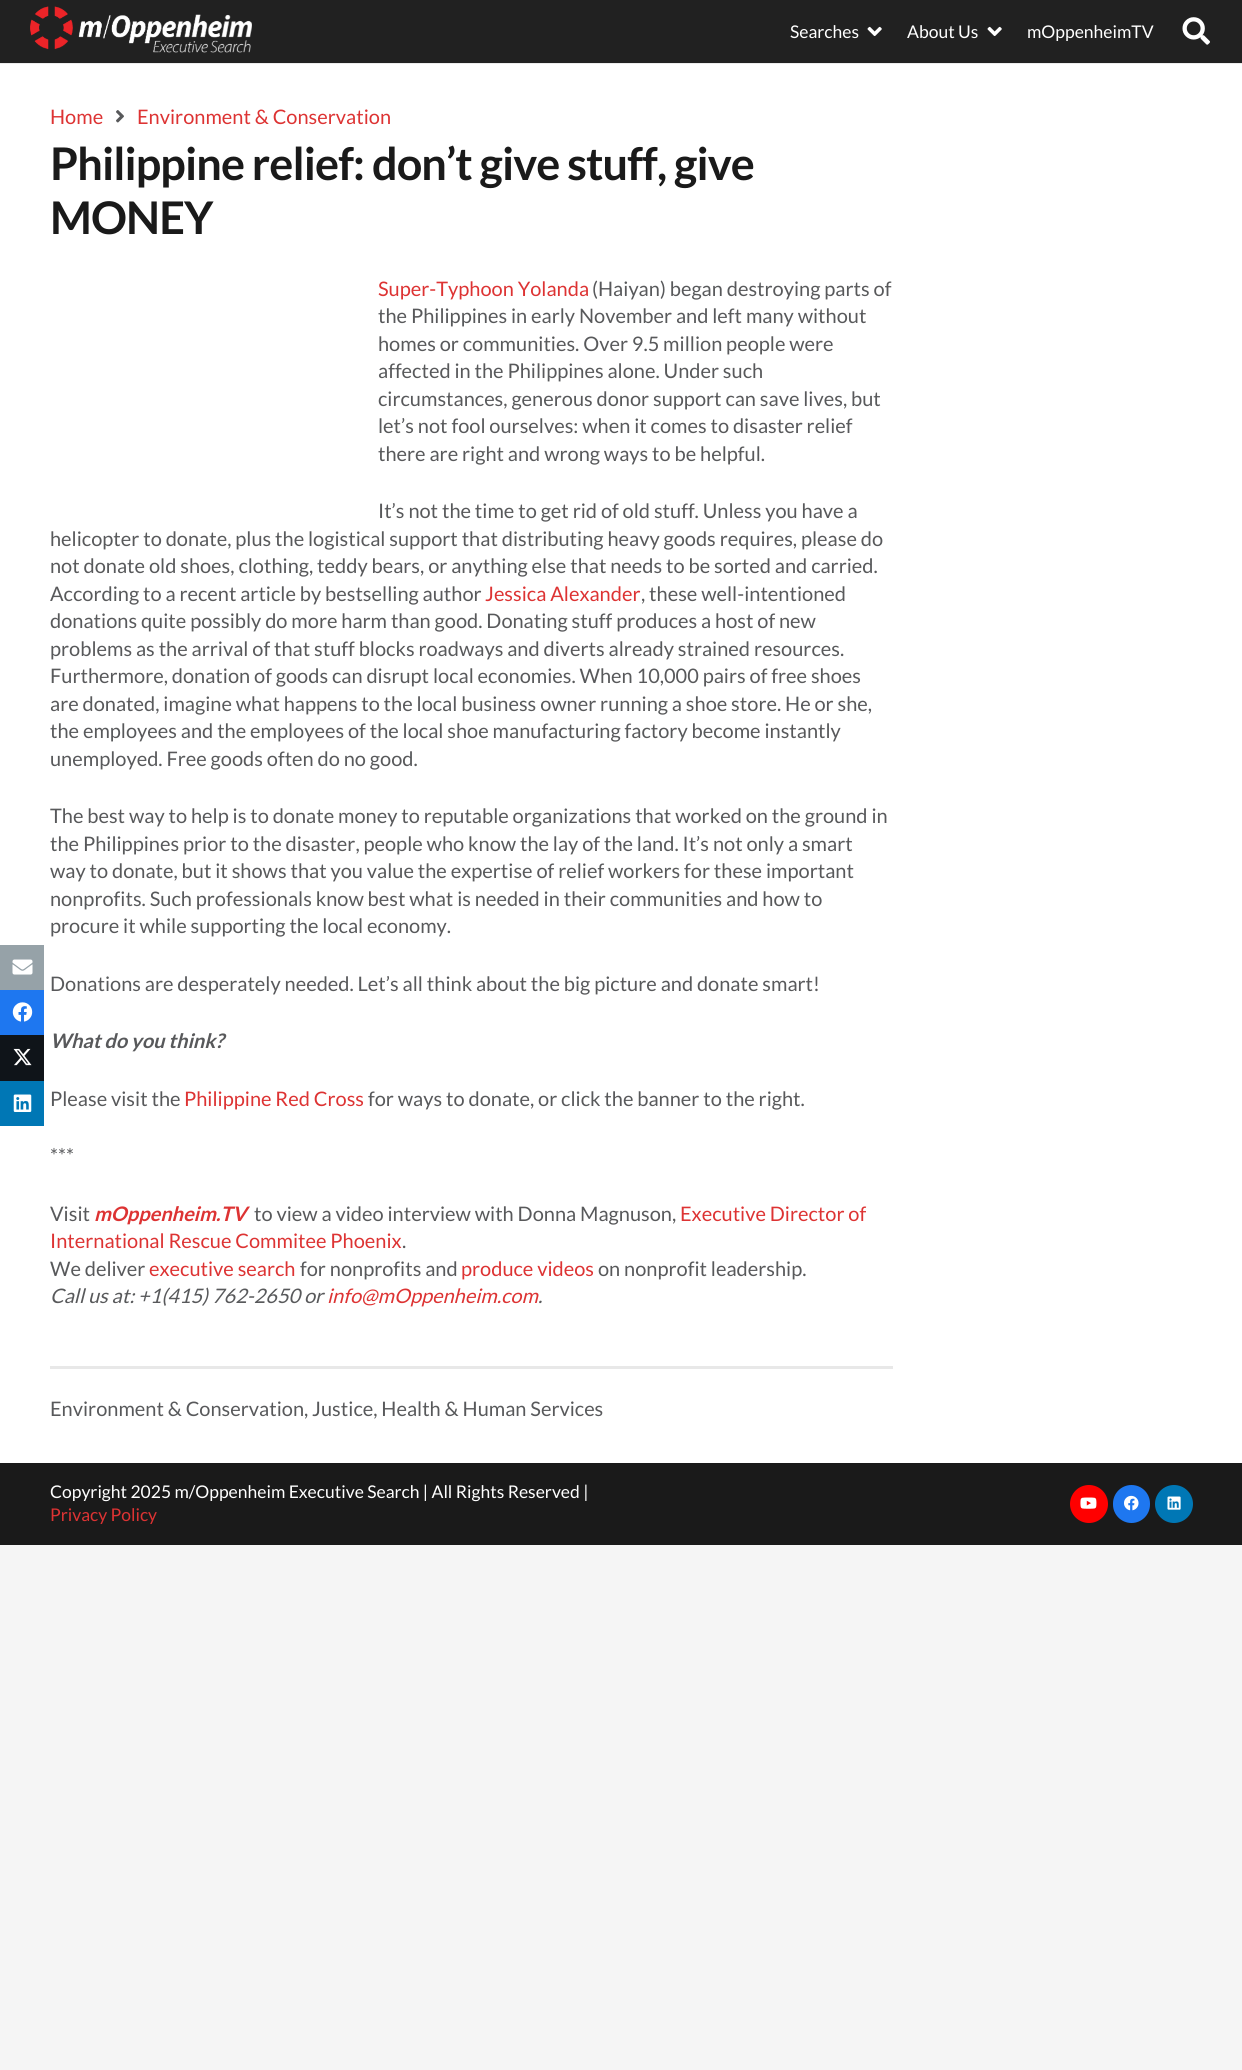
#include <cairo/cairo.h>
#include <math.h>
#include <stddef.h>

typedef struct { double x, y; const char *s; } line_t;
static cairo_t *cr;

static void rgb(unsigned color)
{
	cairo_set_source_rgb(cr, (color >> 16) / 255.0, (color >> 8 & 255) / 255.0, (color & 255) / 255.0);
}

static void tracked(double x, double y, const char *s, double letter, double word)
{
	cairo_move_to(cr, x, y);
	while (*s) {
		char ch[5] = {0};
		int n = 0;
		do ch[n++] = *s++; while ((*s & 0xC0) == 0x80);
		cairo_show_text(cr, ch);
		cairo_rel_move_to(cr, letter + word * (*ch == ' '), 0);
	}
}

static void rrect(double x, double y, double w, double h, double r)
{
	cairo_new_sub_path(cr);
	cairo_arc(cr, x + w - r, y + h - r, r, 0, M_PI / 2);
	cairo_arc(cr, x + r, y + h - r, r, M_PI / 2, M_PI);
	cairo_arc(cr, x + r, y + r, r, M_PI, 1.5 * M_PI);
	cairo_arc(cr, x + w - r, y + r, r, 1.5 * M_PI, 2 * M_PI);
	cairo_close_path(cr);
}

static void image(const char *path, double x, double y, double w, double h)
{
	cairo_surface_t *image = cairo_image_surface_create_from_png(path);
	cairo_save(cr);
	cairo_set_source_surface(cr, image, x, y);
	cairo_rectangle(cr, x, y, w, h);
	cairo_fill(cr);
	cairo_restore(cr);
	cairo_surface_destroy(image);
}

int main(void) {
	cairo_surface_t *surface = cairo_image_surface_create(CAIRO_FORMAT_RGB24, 1242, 2070);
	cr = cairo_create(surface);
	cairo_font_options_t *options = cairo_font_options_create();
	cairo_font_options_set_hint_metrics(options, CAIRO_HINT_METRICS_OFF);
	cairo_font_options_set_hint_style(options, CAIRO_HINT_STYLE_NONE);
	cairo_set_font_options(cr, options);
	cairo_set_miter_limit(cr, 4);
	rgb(0xf5f5f5);
	cairo_paint(cr);
	rgb(0xffffff);
	cairo_rectangle(cr, 0, 64, 1242, 1399);
	cairo_fill(cr);
	rgb(0xebebeb);
	cairo_new_path(cr);
	cairo_move_to(cr, 0, 62);
	cairo_line_to(cr, 0, 64);
	cairo_line_to(cr, 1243, 64);
	cairo_line_to(cr, 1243, 1);
	cairo_line_to(cr, 1242, 1);
	cairo_line_to(cr, 1242, 62);
	cairo_close_path(cr);
	cairo_fill(cr);
	rgb(0x212121);
	cairo_rectangle(cr, 0, 0, 1242, 63);
	cairo_fill(cr);
	image("img/1.png", 30, 6, 222, 47);
	image("img/2.png", 867, 26, 15, 10);
	image("img/2.png", 987, 26, 15, 10);
	image("img/3.png", 1182, 17, 28, 28);
	image("img/4.png", 116, 110, 8, 13);
	rgb(0x96a2a8);
	cairo_rectangle(cr, 0, 945, 44, 45);
	cairo_fill(cr);
	image("img/5.png", 12, 959, 21, 16);
	rgb(0x1e77f0);
	cairo_rectangle(cr, 0, 990, 44, 45);
	cairo_fill(cr);
	image("img/6.png", 12, 1002, 21, 20);
	rgb(0x0f1419);
	cairo_rectangle(cr, 0, 1035, 44, 46);
	cairo_fill(cr);
	image("img/7.png", 13, 1048, 19, 18);
	rgb(0x0077b5);
	cairo_rectangle(cr, 0, 1081, 44, 45);
	cairo_fill(cr);
	image("img/8.png", 13, 1094, 19, 18);
	rgb(0xe8e8e8);
	cairo_rectangle(cr, 50, 1366, 843, 3);
	cairo_fill(cr);
	rgb(0x1a1a1a);
	cairo_rectangle(cr, 0, 1463, 1242, 82);
	cairo_fill(cr);
	rgb(0xff0000);
	cairo_arc(cr, 1089, 1504, 19, 0, 2 * M_PI);
	cairo_fill(cr);
	image("img/9.png", 1080, 1497, 17, 12);
	rgb(0x1e77f0);
	rrect(1113, 1485, 37, 38, 18.5);
	cairo_fill(cr);
	image("img/10.png", 1124, 1495, 15, 16);
	rgb(0x0077b5);
	cairo_arc(cr, 1174, 1504, 19, 0, 2 * M_PI);
	cairo_fill(cr);
	image("img/11.png", 1167, 1496, 14, 14);
	cairo_select_font_face(cr, "Lato", CAIRO_FONT_SLANT_NORMAL, CAIRO_FONT_WEIGHT_NORMAL);
	cairo_set_font_size(cr, 17.5);
	rgb(0xffffff);
	{
		static const line_t items[] = {
			{790, 38, "Searches"},
			{907, 38, "About Us"},
			{1027, 38, "mOppenheimTV"},
		};
		for (size_t i = 0; i < sizeof items / sizeof *items; i++) {
			cairo_move_to(cr, items[i].x, items[i].y);
			cairo_show_text(cr, items[i].s);
		}
	}
	cairo_set_font_size(cr, 20);
	rgb(0xdd3333);
	cairo_move_to(cr, 50, 124);
	cairo_show_text(cr, "Home");
	cairo_move_to(cr, 137, 124);
	cairo_show_text(cr, "Environment & Conservation");
	cairo_select_font_face(cr, "Lato", CAIRO_FONT_SLANT_NORMAL, CAIRO_FONT_WEIGHT_BOLD);
	cairo_set_font_size(cr, 45);
	rgb(0x1a1a1a);
	tracked(50, 180, "Philippine relief: don’t give stuff, give", -0.9, 0);
	tracked(50, 234, "MONEY", -0.9, 0);
	cairo_select_font_face(cr, "Lato", CAIRO_FONT_SLANT_NORMAL, CAIRO_FONT_WEIGHT_NORMAL);
	cairo_set_font_size(cr, 20);
	rgb(0xdd3333);
	cairo_move_to(cr, 378, 296);
	cairo_show_text(cr, "Super-Typhoon Yolanda");
	rgb(0x58595b);
	{
		static const line_t items[] = {
			{592, 296, "(Haiyan) began destroying parts of"},
			{378, 323, "the Philippines in early November and left many without"},
			{378, 351, "homes or communities. Over 9.5 million people were"},
			{378, 378, "affected in the Philippines alone. Under such"},
			{378, 406, "circumstances, generous donor support can save lives, but"},
			{378, 433, "let’s not fool ourselves: when it comes to disaster relief"},
			{378, 461, "there are right and wrong ways to be helpful."},
			{378, 518, "It’s not the time to get rid of old stuff. Unless you have a"},
			{50, 546, "helicopter to donate, plus the logistical support that distributing heavy goods requires, please do"},
			{50, 573, "not donate old shoes, clothing, teddy bears, or anything else that needs to be sorted and carried."},
			{50, 601, "According to a recent article by bestselling author"},
		};
		for (size_t i = 0; i < sizeof items / sizeof *items; i++) {
			cairo_move_to(cr, items[i].x, items[i].y);
			cairo_show_text(cr, items[i].s);
		}
	}
	rgb(0xdd3333);
	cairo_move_to(cr, 485, 601);
	cairo_show_text(cr, "Jessica Alexander");
	rgb(0x58595b);
	{
		static const line_t items[] = {
			{641, 601, ", these well-intentioned"},
			{50, 628, "donations quite possibly do more harm than good. Donating stuff produces a host of new"},
			{50, 656, "problems as the arrival of that stuff blocks roadways and diverts already strained resources."},
			{50, 683, "Furthermore, donation of goods can disrupt local economies. When 10,000 pairs of free shoes"},
			{50, 711, "are donated, imagine what happens to the local business owner running a shoe store. He or she,"},
			{50, 738, "the employees and the employees of the local shoe manufacturing factory become instantly"},
			{50, 766, "unemployed. Free goods often do no good."},
			{50, 823, "The best way to help is to donate money to reputable organizations that worked on the ground in"},
			{50, 851, "the Philippines prior to the disaster, people who know the lay of the land. It’s not only a smart"},
			{50, 878, "way to donate, but it shows that you value the expertise of relief workers for these important"},
			{50, 906, "nonprofits. Such professionals know best what is needed in their communities and how to"},
			{50, 933, "procure it while supporting the local economy."},
			{50, 991, "Donations are desperately needed. Let’s all think about the big picture and donate smart!"},
		};
		for (size_t i = 0; i < sizeof items / sizeof *items; i++) {
			cairo_move_to(cr, items[i].x, items[i].y);
			cairo_show_text(cr, items[i].s);
		}
	}
	cairo_select_font_face(cr, "Lato", CAIRO_FONT_SLANT_ITALIC, CAIRO_FONT_WEIGHT_BOLD);
	cairo_move_to(cr, 50, 1048);
	cairo_show_text(cr, "What do you think?");
	cairo_select_font_face(cr, "Lato", CAIRO_FONT_SLANT_NORMAL, CAIRO_FONT_WEIGHT_NORMAL);
	cairo_move_to(cr, 50, 1106);
	cairo_show_text(cr, "Please visit the");
	rgb(0xdd3333);
	cairo_move_to(cr, 184, 1106);
	cairo_show_text(cr, "Philippine Red Cross");
	rgb(0x58595b);
	{
		static const line_t items[] = {
			{368, 1106, "for ways to donate, or click the banner to the right."},
			{50, 1163, "***"},
			{50, 1221, "Visit"},
		};
		for (size_t i = 0; i < sizeof items / sizeof *items; i++) {
			cairo_move_to(cr, items[i].x, items[i].y);
			cairo_show_text(cr, items[i].s);
		}
	}
	cairo_select_font_face(cr, "Lato", CAIRO_FONT_SLANT_ITALIC, CAIRO_FONT_WEIGHT_BOLD);
	rgb(0xdd3333);
	cairo_move_to(cr, 94, 1221);
	cairo_show_text(cr, "mOppenheim.TV");
	cairo_select_font_face(cr, "Lato", CAIRO_FONT_SLANT_NORMAL, CAIRO_FONT_WEIGHT_NORMAL);
	rgb(0x58595b);
	cairo_move_to(cr, 254, 1221);
	cairo_show_text(cr, "to view a video interview with Donna Magnuson,");
	rgb(0xdd3333);
	cairo_move_to(cr, 680, 1221);
	cairo_show_text(cr, "Executive Director of");
	cairo_move_to(cr, 50, 1248);
	cairo_show_text(cr, "International Rescue Commitee Phoenix");
	rgb(0x58595b);
	cairo_move_to(cr, 402, 1248);
	cairo_show_text(cr, ".");
	cairo_move_to(cr, 50, 1276);
	cairo_show_text(cr, "We deliver");
	rgb(0xdd3333);
	cairo_move_to(cr, 149, 1276);
	cairo_show_text(cr, "executive search");
	rgb(0x58595b);
	cairo_move_to(cr, 300, 1276);
	cairo_show_text(cr, "for nonprofits and");
	rgb(0xdd3333);
	cairo_move_to(cr, 461, 1276);
	cairo_show_text(cr, "produce videos");
	rgb(0x58595b);
	cairo_move_to(cr, 598, 1276);
	cairo_show_text(cr, "on nonprofit leadership.");
	cairo_select_font_face(cr, "Lato", CAIRO_FONT_SLANT_ITALIC, CAIRO_FONT_WEIGHT_NORMAL);
	cairo_move_to(cr, 50, 1303);
	cairo_show_text(cr, "Call us at: +1(415) 762-2650 or");
	rgb(0xdd3333);
	cairo_move_to(cr, 327, 1303);
	cairo_show_text(cr, "info@mOppenheim.com");
	rgb(0x58595b);
	cairo_move_to(cr, 538, 1303);
	cairo_show_text(cr, ".");
	cairo_select_font_face(cr, "Lato", CAIRO_FONT_SLANT_NORMAL, CAIRO_FONT_WEIGHT_NORMAL);
	cairo_move_to(cr, 50, 1416);
	cairo_show_text(cr, "Environment & Conservation, Justice, Health & Human Services");
	cairo_set_font_size(cr, 17.5);
	rgb(0xffffff);
	cairo_move_to(cr, 50, 1498);
	cairo_show_text(cr, "Copyright 2025 m/Oppenheim Executive Search | All Rights Reserved |");
	rgb(0xdd3333);
	cairo_move_to(cr, 50, 1521);
	cairo_show_text(cr, "Privacy Policy");
	cairo_surface_write_to_png(surface, "page.png");
	cairo_font_options_destroy(options);
	cairo_destroy(cr);
	cairo_surface_destroy(surface);
	return 0;
}
